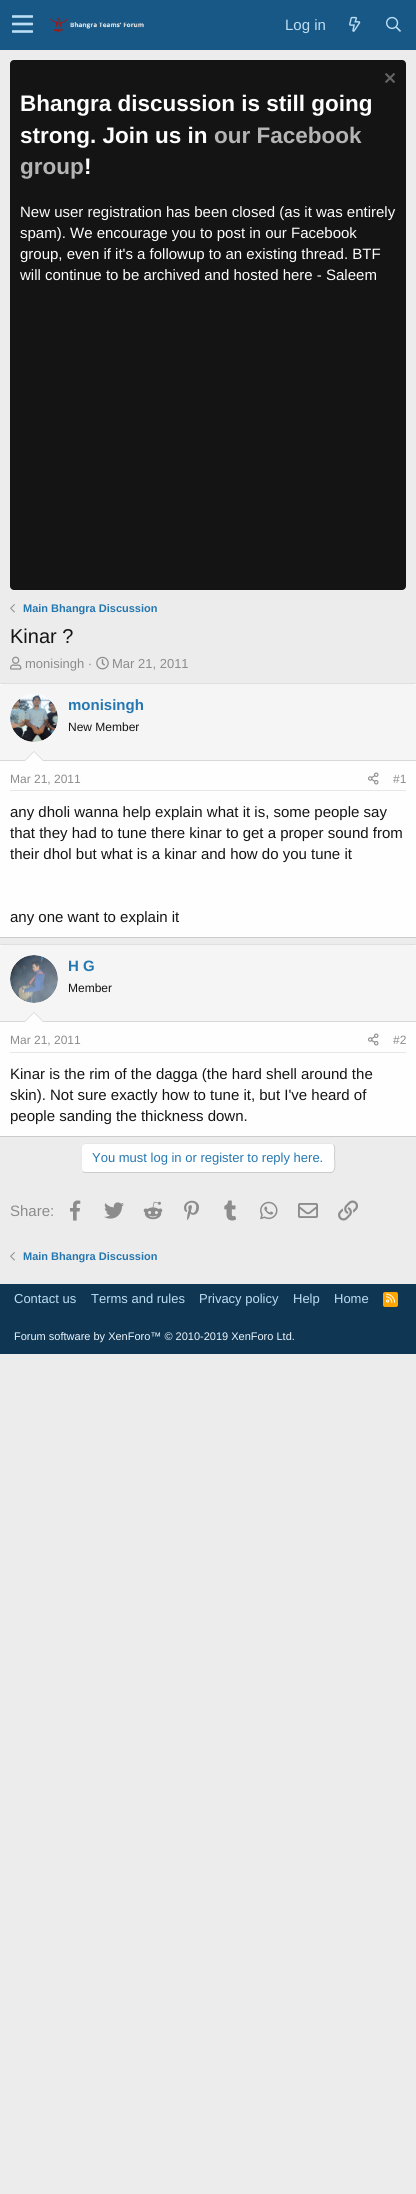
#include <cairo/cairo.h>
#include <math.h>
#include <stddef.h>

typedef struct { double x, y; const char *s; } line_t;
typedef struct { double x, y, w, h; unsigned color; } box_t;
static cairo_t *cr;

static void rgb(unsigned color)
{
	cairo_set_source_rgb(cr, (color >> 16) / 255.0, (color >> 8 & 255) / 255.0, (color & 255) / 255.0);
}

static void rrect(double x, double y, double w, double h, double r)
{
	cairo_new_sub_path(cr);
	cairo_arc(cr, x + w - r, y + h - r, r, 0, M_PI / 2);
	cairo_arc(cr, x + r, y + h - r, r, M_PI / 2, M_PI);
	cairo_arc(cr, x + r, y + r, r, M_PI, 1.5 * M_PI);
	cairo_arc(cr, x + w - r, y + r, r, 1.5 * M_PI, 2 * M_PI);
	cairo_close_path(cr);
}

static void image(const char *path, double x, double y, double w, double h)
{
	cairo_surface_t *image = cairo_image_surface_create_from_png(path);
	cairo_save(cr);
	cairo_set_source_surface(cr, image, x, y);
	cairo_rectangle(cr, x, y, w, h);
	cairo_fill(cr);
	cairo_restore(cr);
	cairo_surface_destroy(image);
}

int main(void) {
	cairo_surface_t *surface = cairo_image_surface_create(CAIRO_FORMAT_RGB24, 416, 2194);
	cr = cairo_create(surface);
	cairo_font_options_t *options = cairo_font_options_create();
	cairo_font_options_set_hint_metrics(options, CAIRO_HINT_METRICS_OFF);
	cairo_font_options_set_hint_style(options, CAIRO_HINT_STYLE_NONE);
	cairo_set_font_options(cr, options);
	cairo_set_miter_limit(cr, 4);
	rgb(0xececec);
	cairo_paint(cr);
	rgb(0x185886);
	cairo_rectangle(cr, 0, 0, 416, 50);
	cairo_fill(cr);
	image("img/1.png", 12, 15, 21, 18);
	image("img/2.png", 49, 17, 95, 16);
	image("img/3.png", 349, 16, 12, 16);
	image("img/4.png", 386, 16, 15, 16);
	rgb(0x141414);
	rrect(10, 60, 396, 530, 4);
	cairo_fill(cr);
	image("img/5.png", 385, 73, 10, 10);
	image("img/6.png", 10, 604, 5, 9);
	image("img/7.png", 10, 656, 12, 14);
	image("img/8.png", 96, 656, 13, 14);
	{
		static const box_t items[] = {
			{0, 684, 416, 253, 0xfefefe},
			{0, 683, 416, 1, 0xdfdfdf},
			{0, 937, 416, 1, 0xcbcbcb},
		};
		for (size_t i = 0; i < sizeof items / sizeof *items; i++) {
			rgb(items[i].color);
			cairo_rectangle(cr, items[i].x, items[i].y, items[i].w, items[i].h);
			cairo_fill(cr);
		}
	}
	rgb(0xf5f5f5);
	cairo_new_path(cr);
	cairo_move_to(cr, 3, 684);
	cairo_line_to(cr, 413, 684);
	cairo_curve_to(cr, 414.5, 684, 416, 685.5, 416, 687);
	cairo_line_to(cr, 416, 761);
	cairo_line_to(cr, 0, 761);
	cairo_line_to(cr, 0, 687);
	cairo_curve_to(cr, 0, 685.5, 1.5, 684, 3, 684);
	cairo_close_path(cr);
	cairo_fill(cr);
	rgb(0xd8d8d8);
	cairo_rectangle(cr, 0, 760, 416, 1);
	cairo_fill(cr);
	rgb(0xfefefe);
	cairo_arc(cr, 34, 718, 24, 0, 2 * M_PI);
	cairo_fill(cr);
	image("img/9.png", 10, 694, 48, 48);
	rgb(0xd8d8d8);
	cairo_new_path(cr);
	cairo_move_to(cr, 44, 761);
	cairo_line_to(cr, 24, 761);
	cairo_line_to(cr, 34, 751);
	cairo_close_path(cr);
	cairo_fill(cr);
	rgb(0xfefefe);
	cairo_new_path(cr);
	cairo_move_to(cr, 43, 761);
	cairo_line_to(cr, 25, 761);
	cairo_line_to(cr, 34, 752);
	cairo_close_path(cr);
	cairo_fill(cr);
	rgb(0xe7e7e7);
	cairo_rectangle(cr, 10, 790, 396, 1);
	cairo_fill(cr);
	image("img/10.png", 368, 772, 11, 13);
	{
		static const box_t items[] = {
			{0, 945, 416, 191, 0xfefefe},
			{0, 944, 416, 1, 0xdfdfdf},
			{0, 1136, 416, 1, 0xcbcbcb},
		};
		for (size_t i = 0; i < sizeof items / sizeof *items; i++) {
			rgb(items[i].color);
			cairo_rectangle(cr, items[i].x, items[i].y, items[i].w, items[i].h);
			cairo_fill(cr);
		}
	}
	rgb(0xf5f5f5);
	cairo_new_path(cr);
	cairo_move_to(cr, 3, 945);
	cairo_line_to(cr, 413, 945);
	cairo_curve_to(cr, 414.5, 945, 416, 946.5, 416, 948);
	cairo_line_to(cr, 416, 1022);
	cairo_line_to(cr, 0, 1022);
	cairo_line_to(cr, 0, 948);
	cairo_curve_to(cr, 0, 946.5, 1.5, 945, 3, 945);
	cairo_close_path(cr);
	cairo_fill(cr);
	rgb(0xd8d8d8);
	cairo_rectangle(cr, 0, 1021, 416, 1);
	cairo_fill(cr);
	rgb(0xfefefe);
	cairo_arc(cr, 34, 979, 24, 0, 2 * M_PI);
	cairo_fill(cr);
	image("img/11.png", 10, 955, 48, 48);
	rgb(0xd8d8d8);
	cairo_new_path(cr);
	cairo_move_to(cr, 44, 1022);
	cairo_line_to(cr, 24, 1022);
	cairo_line_to(cr, 34, 1012);
	cairo_close_path(cr);
	cairo_fill(cr);
	rgb(0xfefefe);
	cairo_new_path(cr);
	cairo_move_to(cr, 43, 1022);
	cairo_line_to(cr, 25, 1022);
	cairo_line_to(cr, 34, 1013);
	cairo_close_path(cr);
	cairo_fill(cr);
	rgb(0xe7e7e7);
	cairo_rectangle(cr, 10, 1052, 396, 1);
	cairo_fill(cr);
	image("img/10.png", 368, 1033, 11, 13);
	rgb(0xfefefe);
	rrect(81, 1143, 254, 30, 4);
	cairo_fill(cr);
	cairo_new_path(cr);
	cairo_move_to(cr, 333.5, 1144.5);
	cairo_curve_to(cr, 335.5, 1146.5, 334.5, 1155, 334.5, 1158);
	cairo_curve_to(cr, 334.5, 1161, 336, 1169.5, 333, 1171.5);
	cairo_line_to(cr, 331.5, 1172.5);
	cairo_line_to(cr, 85, 1172.5);
	cairo_line_to(cr, 82.5, 1171.5);
	rgb(0xcbcbcb);
	cairo_set_line_width(cr, 1);
	cairo_stroke(cr);
	cairo_new_path(cr);
	cairo_move_to(cr, 82.5, 1171.5);
	cairo_curve_to(cr, 80.5, 1169.5, 81.5, 1161, 81.5, 1158);
	cairo_curve_to(cr, 81.5, 1155, 80, 1146.5, 83, 1144.5);
	cairo_line_to(cr, 84.5, 1143.5);
	cairo_line_to(cr, 331, 1143.5);
	cairo_line_to(cr, 333.5, 1144.5);
	rgb(0xe5e5e5);
	cairo_stroke(cr);
	image("img/12.png", 70, 1200, 11, 21);
	image("img/13.png", 104, 1202, 20, 17);
	image("img/14.png", 143, 1201, 20, 19);
	image("img/15.png", 184, 1200, 15, 21);
	image("img/16.png", 224, 1200, 13, 21);
	image("img/17.png", 260, 1201, 18, 19);
	image("img/18.png", 298, 1203, 20, 15);
	image("img/19.png", 338, 1200, 20, 21);
	image("img/6.png", 10, 1252, 5, 9);
	rgb(0x0f3652);
	cairo_rectangle(cr, 0, 1284, 416, 70);
	cairo_fill(cr);
	rgb(0xffa500);
	rrect(383, 1292, 15, 15, 2);
	cairo_fill(cr);
	image("img/20.png", 386, 1293, 10, 10);
	cairo_select_font_face(cr, "Liberation Sans", CAIRO_FONT_SLANT_NORMAL, CAIRO_FONT_WEIGHT_NORMAL);
	cairo_set_font_size(cr, 15);
	rgb(0xbcdef5);
	cairo_move_to(cr, 285, 30);
	cairo_show_text(cr, "Log in");
	cairo_select_font_face(cr, "Liberation Sans", CAIRO_FONT_SLANT_NORMAL, CAIRO_FONT_WEIGHT_BOLD);
	cairo_set_font_size(cr, 22.5);
	rgb(0xfefefe);
	cairo_move_to(cr, 20, 111);
	cairo_show_text(cr, "Bhangra discussion is still going");
	cairo_move_to(cr, 20, 143);
	cairo_show_text(cr, "strong. Join us in");
	rgb(0xb4b4b4);
	cairo_move_to(cr, 214, 143);
	cairo_show_text(cr, "our Facebook");
	cairo_move_to(cr, 20, 174);
	cairo_show_text(cr, "group");
	rgb(0xfefefe);
	cairo_move_to(cr, 84, 174);
	cairo_show_text(cr, "!");
	cairo_select_font_face(cr, "Liberation Sans", CAIRO_FONT_SLANT_NORMAL, CAIRO_FONT_WEIGHT_NORMAL);
	cairo_set_font_size(cr, 15);
	{
		static const line_t items[] = {
			{20, 217, "New user registration has been closed (as it was entirely"},
			{20, 238, "spam). We encourage you to post in our Facebook"},
			{20, 259, "group, even if it's a followup to an existing thread. BTF"},
			{20, 280, "will continue to be archived and hosted here - Saleem"},
		};
		for (size_t i = 0; i < sizeof items / sizeof *items; i++) {
			cairo_move_to(cr, items[i].x, items[i].y);
			cairo_show_text(cr, items[i].s);
		}
	}
	cairo_select_font_face(cr, "Liberation Sans", CAIRO_FONT_SLANT_NORMAL, CAIRO_FONT_WEIGHT_BOLD);
	cairo_set_font_size(cr, 11);
	rgb(0x2577b1);
	cairo_move_to(cr, 23, 612);
	cairo_show_text(cr, "Main Bhangra Discussion");
	cairo_select_font_face(cr, "Liberation Sans", CAIRO_FONT_SLANT_NORMAL, CAIRO_FONT_WEIGHT_NORMAL);
	cairo_set_font_size(cr, 20);
	rgb(0x141414);
	cairo_move_to(cr, 10, 643);
	cairo_show_text(cr, "Kinar ?");
	cairo_set_font_size(cr, 13);
	rgb(0x8c8c8c);
	cairo_move_to(cr, 25, 668);
	cairo_show_text(cr, "monisingh ·");
	cairo_move_to(cr, 112, 668);
	cairo_show_text(cr, "Mar 21, 2011");
	cairo_select_font_face(cr, "Liberation Sans", CAIRO_FONT_SLANT_NORMAL, CAIRO_FONT_WEIGHT_BOLD);
	cairo_set_font_size(cr, 15);
	rgb(0x2577b1);
	cairo_move_to(cr, 68, 710);
	cairo_show_text(cr, "monisingh");
	cairo_select_font_face(cr, "Liberation Sans", CAIRO_FONT_SLANT_NORMAL, CAIRO_FONT_WEIGHT_NORMAL);
	cairo_set_font_size(cr, 12);
	rgb(0x141414);
	cairo_move_to(cr, 68, 731);
	cairo_show_text(cr, "New Member");
	rgb(0x8c8c8c);
	cairo_move_to(cr, 10, 783);
	cairo_show_text(cr, "Mar 21, 2011");
	cairo_move_to(cr, 393, 783);
	cairo_show_text(cr, "#1");
	cairo_set_font_size(cr, 15);
	rgb(0x141414);
	{
		static const line_t items[] = {
			{10, 817, "any dholi wanna help explain what it is, some people say"},
			{10, 838, "that they had to tune there kinar to get a proper sound from"},
			{10, 859, "their dhol but what is a kinar and how do you tune it"},
			{10, 922, "any one want to explain it"},
		};
		for (size_t i = 0; i < sizeof items / sizeof *items; i++) {
			cairo_move_to(cr, items[i].x, items[i].y);
			cairo_show_text(cr, items[i].s);
		}
	}
	cairo_select_font_face(cr, "Liberation Sans", CAIRO_FONT_SLANT_NORMAL, CAIRO_FONT_WEIGHT_BOLD);
	rgb(0x2577b1);
	cairo_move_to(cr, 68, 971);
	cairo_show_text(cr, "H G");
	cairo_select_font_face(cr, "Liberation Sans", CAIRO_FONT_SLANT_NORMAL, CAIRO_FONT_WEIGHT_NORMAL);
	cairo_set_font_size(cr, 12);
	rgb(0x141414);
	cairo_move_to(cr, 68, 992);
	cairo_show_text(cr, "Member");
	rgb(0x8c8c8c);
	cairo_move_to(cr, 10, 1044);
	cairo_show_text(cr, "Mar 21, 2011");
	cairo_move_to(cr, 393, 1044);
	cairo_show_text(cr, "#2");
	cairo_set_font_size(cr, 15);
	rgb(0x141414);
	{
		static const line_t items[] = {
			{10, 1079, "Kinar is the rim of the dagga (the hard shell around the"},
			{10, 1100, "skin). Not sure exactly how to tune it, but I've heard of"},
			{10, 1121, "people sanding the thickness down."},
		};
		for (size_t i = 0; i < sizeof items / sizeof *items; i++) {
			cairo_move_to(cr, items[i].x, items[i].y);
			cairo_show_text(cr, items[i].s);
		}
	}
	cairo_set_font_size(cr, 13);
	rgb(0x2577b1);
	cairo_move_to(cr, 92, 1162);
	cairo_show_text(cr, "You must log in or register to reply here.");
	cairo_set_font_size(cr, 15);
	rgb(0x8c8c8c);
	cairo_move_to(cr, 10, 1216);
	cairo_show_text(cr, "Share:");
	cairo_select_font_face(cr, "Liberation Sans", CAIRO_FONT_SLANT_NORMAL, CAIRO_FONT_WEIGHT_BOLD);
	cairo_set_font_size(cr, 11);
	rgb(0x2577b1);
	cairo_move_to(cr, 23, 1260);
	cairo_show_text(cr, "Main Bhangra Discussion");
	cairo_select_font_face(cr, "Liberation Sans", CAIRO_FONT_SLANT_NORMAL, CAIRO_FONT_WEIGHT_NORMAL);
	cairo_set_font_size(cr, 13);
	rgb(0xbcdef5);
	{
		static const line_t items[] = {
			{14, 1303, "Contact us"},
			{91, 1303, "Terms and rules"},
			{199, 1303, "Privacy policy"},
			{293, 1303, "Help"},
			{334, 1303, "Home"},
		};
		for (size_t i = 0; i < sizeof items / sizeof *items; i++) {
			cairo_move_to(cr, items[i].x, items[i].y);
			cairo_show_text(cr, items[i].s);
		}
	}
	cairo_set_font_size(cr, 11);
	rgb(0xedf6fd);
	cairo_move_to(cr, 14, 1340);
	cairo_show_text(cr, "Forum software by XenForo™ © 2010-2019 XenForo Ltd.");
	cairo_surface_write_to_png(surface, "page.png");
	cairo_font_options_destroy(options);
	cairo_destroy(cr);
	cairo_surface_destroy(surface);
	return 0;
}
